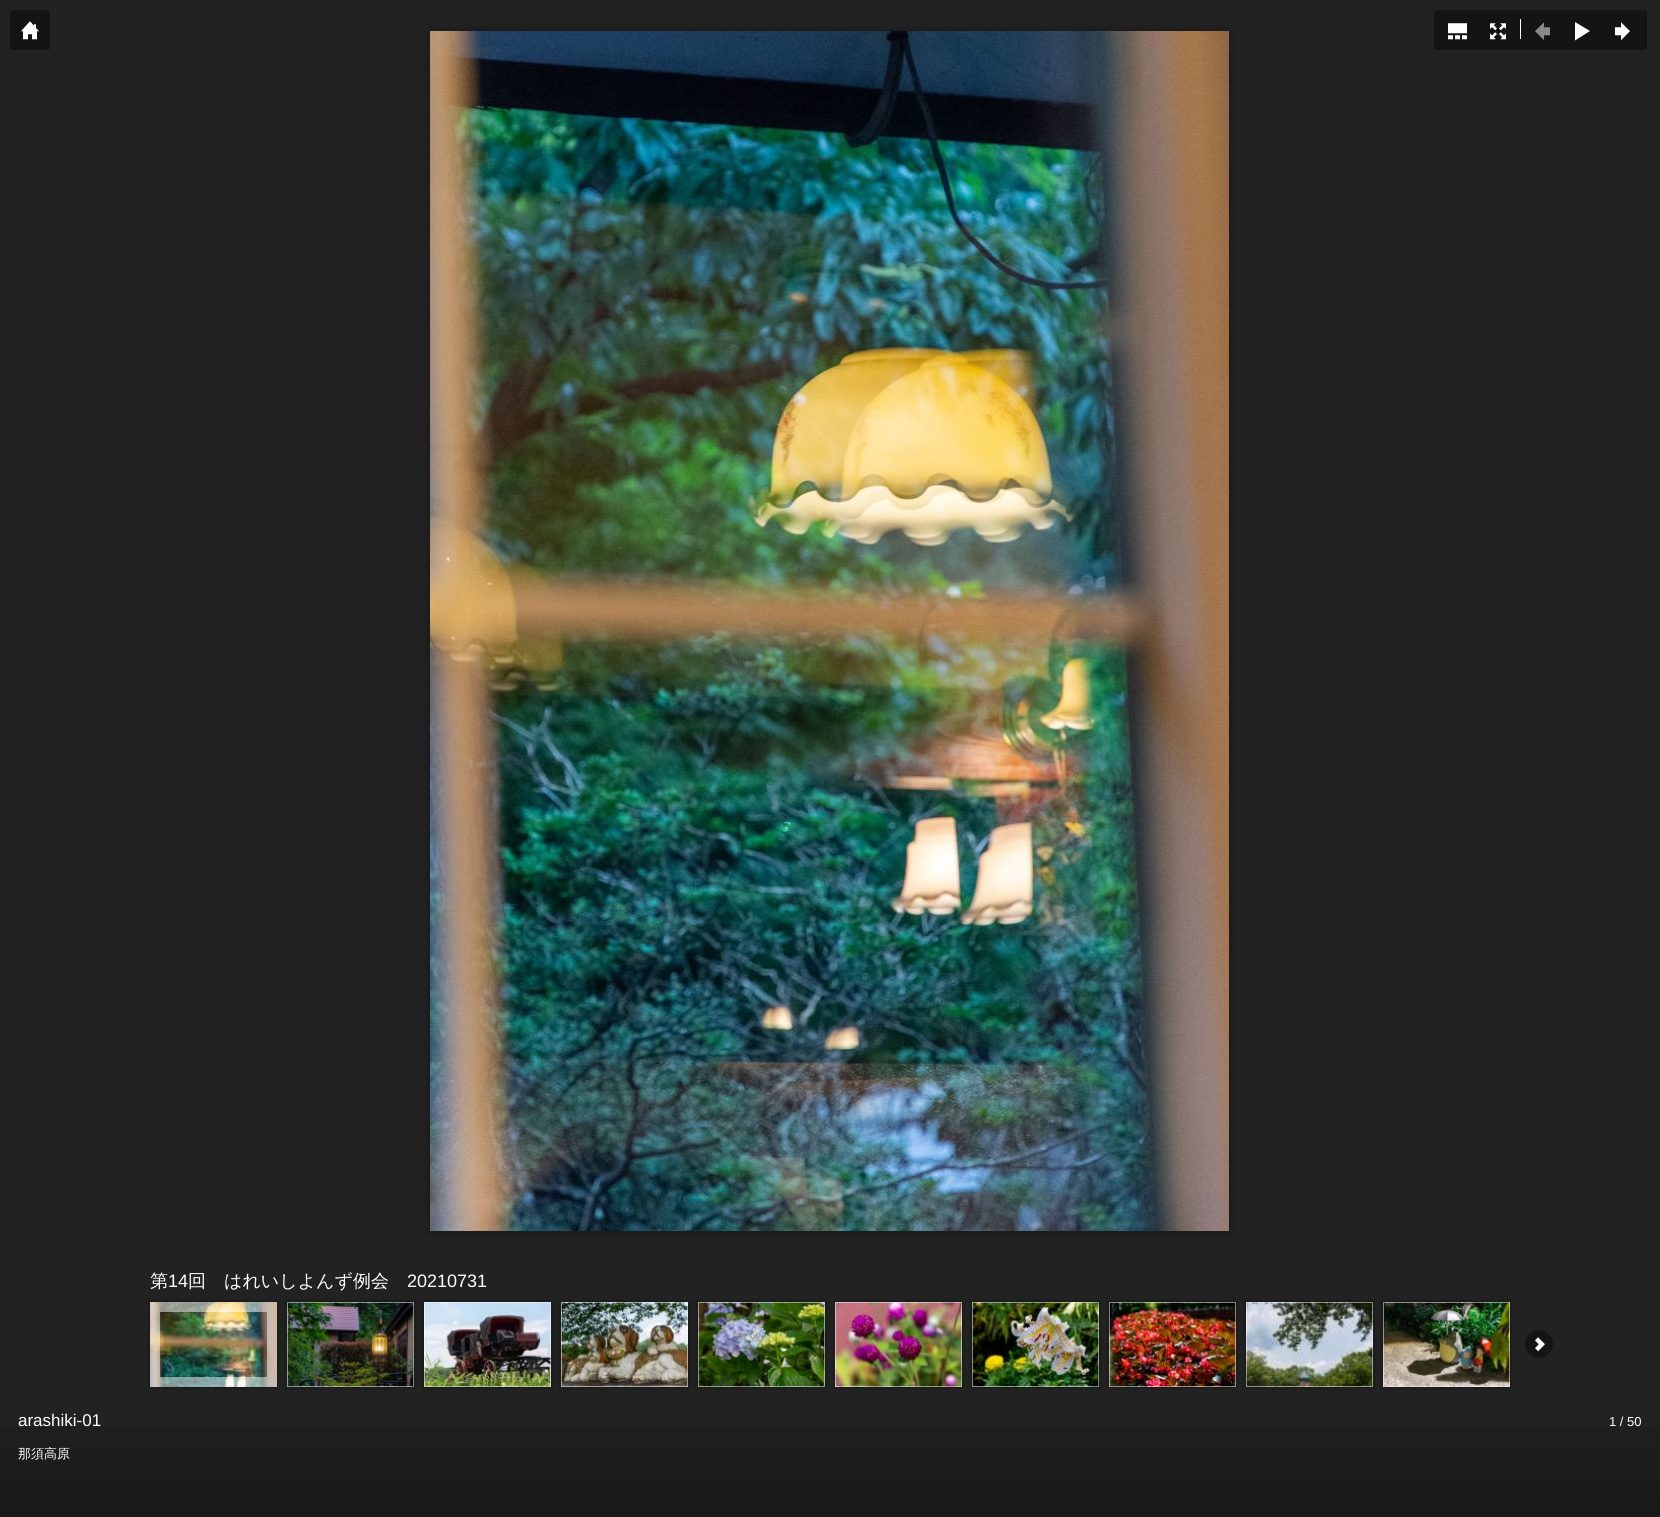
#include <cairo/cairo.h>
#include <math.h>
#include <stddef.h>

static cairo_t *cr;

static void rgb(unsigned color)
{
	cairo_set_source_rgb(cr, (color >> 16) / 255.0, (color >> 8 & 255) / 255.0, (color & 255) / 255.0);
}

static void rrect(double x, double y, double w, double h, double r)
{
	cairo_new_sub_path(cr);
	cairo_arc(cr, x + w - r, y + h - r, r, 0, M_PI / 2);
	cairo_arc(cr, x + r, y + h - r, r, M_PI / 2, M_PI);
	cairo_arc(cr, x + r, y + r, r, M_PI, 1.5 * M_PI);
	cairo_arc(cr, x + w - r, y + r, r, 1.5 * M_PI, 2 * M_PI);
	cairo_close_path(cr);
}

static void soft_shadow(double x, double y, double w, double h, double r, double blur, double alpha)
{
	cairo_push_group_with_content(cr, CAIRO_CONTENT_ALPHA);
	cairo_set_operator(cr, CAIRO_OPERATOR_SOURCE);
	for (int i = 15; i >= -15 && fmin(w, h) + blur * i / 3 > 0; i -= 2) {
		double e = blur * i / 6;
		cairo_set_source_rgba(cr, 0, 0, 0, alpha * erfc((i - 1) / 8.5) / 2);
		rrect(x - e, y - e, w + 2 * e, h + 2 * e, fmax(0, fmin(r + e + blur * .6, fmin(w, h) / 2 + e)));
		cairo_fill(cr);
	}
	cairo_pattern_t *soft = cairo_pop_group(cr);
	cairo_mask(cr, soft);
	cairo_pattern_destroy(soft);
}

static void image(const char *path, double x, double y, double w, double h)
{
	cairo_surface_t *image = cairo_image_surface_create_from_png(path);
	cairo_save(cr);
	cairo_set_source_surface(cr, image, x, y);
	cairo_rectangle(cr, x, y, w, h);
	cairo_fill(cr);
	cairo_restore(cr);
	cairo_surface_destroy(image);
}

int main(void) {
	cairo_surface_t *surface = cairo_image_surface_create(CAIRO_FORMAT_RGB24, 1660, 1517);
	cr = cairo_create(surface);
	cairo_font_options_t *options = cairo_font_options_create();
	cairo_font_options_set_hint_metrics(options, CAIRO_HINT_METRICS_OFF);
	cairo_font_options_set_hint_style(options, CAIRO_HINT_STYLE_NONE);
	cairo_set_font_options(cr, options);
	cairo_set_miter_limit(cr, 4);
	cairo_pattern_t *gradient;
	rgb(0x222222);
	cairo_paint(cr);
	rgb(0x141414);
	rrect(10, 10, 40, 40, 3);
	cairo_fill(cr);
	image("img/1.png", 21, 21, 18, 19);
	rgb(0x000000);
	soft_shadow(430, 31, 799, 1200, 0, 5, 0.4);
	image("img/2.png", 430, 31, 799, 1200);
	rgb(0x141414);
	rrect(1434, 10, 213, 40, 3);
	cairo_fill(cr);
	image("img/3.png", 1448, 23, 19, 17);
	image("img/4.png", 1490, 23, 16, 17);
	rgb(0xffffff);
	cairo_rectangle(cr, 1520, 19, 1, 20);
	cairo_fill(cr);
	image("img/5.png", 1535, 22, 15, 18);
	cairo_new_path(cr);
	cairo_move_to(cr, 1575, 40.5);
	cairo_line_to(cr, 1575, 22);
	cairo_line_to(cr, 1590, 31);
	cairo_close_path(cr);
	cairo_fill(cr);
	image("img/6.png", 1615, 22, 15, 19);
	rgb(0x000000);
	soft_shadow(150, 1302, 127, 85, 0, 2.5, 0.4);
	image("img/7.png", 150, 1302, 127, 85);
	cairo_rectangle(cr, 155, 1307, 117, 75);
	cairo_set_source_rgba(cr, 1, 1, 1, 0.5);
	cairo_set_line_width(cr, 10);
	cairo_stroke(cr);
	rgb(0x000000);
	soft_shadow(287, 1302, 127, 85, 0, 2.5, 0.4);
	image("img/8.png", 287, 1302, 127, 85);
	cairo_rectangle(cr, 287.5, 1302.5, 126, 84);
	cairo_set_source_rgba(cr, 1, 1, 1, 0.5);
	cairo_set_line_width(cr, 1);
	cairo_stroke(cr);
	rgb(0x000000);
	soft_shadow(424, 1302, 127, 85, 0, 2.5, 0.4);
	image("img/9.png", 424, 1302, 127, 85);
	cairo_rectangle(cr, 424.5, 1302.5, 126, 84);
	cairo_set_source_rgba(cr, 1, 1, 1, 0.5);
	cairo_stroke(cr);
	rgb(0x000000);
	soft_shadow(561, 1302, 127, 85, 0, 2.5, 0.4);
	image("img/10.png", 561, 1302, 127, 85);
	cairo_rectangle(cr, 561.5, 1302.5, 126, 84);
	cairo_set_source_rgba(cr, 1, 1, 1, 0.5);
	cairo_stroke(cr);
	rgb(0x000000);
	soft_shadow(698, 1302, 127, 85, 0, 2.5, 0.4);
	image("img/11.png", 698, 1302, 127, 85);
	cairo_rectangle(cr, 698.5, 1302.5, 126, 84);
	cairo_set_source_rgba(cr, 1, 1, 1, 0.5);
	cairo_stroke(cr);
	rgb(0x000000);
	soft_shadow(835, 1302, 127, 85, 0, 2.5, 0.4);
	image("img/12.png", 835, 1302, 127, 85);
	cairo_rectangle(cr, 835.5, 1302.5, 126, 84);
	cairo_set_source_rgba(cr, 1, 1, 1, 0.5);
	cairo_stroke(cr);
	rgb(0x000000);
	soft_shadow(972, 1302, 127, 85, 0, 2.5, 0.4);
	image("img/13.png", 972, 1302, 127, 85);
	cairo_rectangle(cr, 972.5, 1302.5, 126, 84);
	cairo_set_source_rgba(cr, 1, 1, 1, 0.5);
	cairo_stroke(cr);
	rgb(0x000000);
	soft_shadow(1109, 1302, 127, 85, 0, 2.5, 0.4);
	image("img/14.png", 1109, 1302, 127, 85);
	cairo_rectangle(cr, 1109.5, 1302.5, 126, 84);
	cairo_set_source_rgba(cr, 1, 1, 1, 0.5);
	cairo_stroke(cr);
	rgb(0x000000);
	soft_shadow(1246, 1302, 127, 85, 0, 2.5, 0.4);
	image("img/15.png", 1246, 1302, 127, 85);
	cairo_rectangle(cr, 1246.5, 1302.5, 126, 84);
	cairo_set_source_rgba(cr, 1, 1, 1, 0.5);
	cairo_stroke(cr);
	rgb(0x000000);
	soft_shadow(1383, 1302, 127, 85, 0, 2.5, 0.4);
	image("img/16.png", 1383, 1302, 127, 85);
	cairo_rectangle(cr, 1383.5, 1302.5, 126, 84);
	cairo_set_source_rgba(cr, 1, 1, 1, 0.5);
	cairo_stroke(cr);
	rgb(0x141414);
	cairo_arc(cr, 1539, 1344, 14, 0, 2 * M_PI);
	cairo_fill(cr);
	image("img/17.png", 1535, 1337, 10, 15);
	gradient = cairo_pattern_create_linear(830, 1397, 830, 1517);
	cairo_pattern_add_color_stop_rgba(gradient, 0, 0.133, 0.133, 0.133, 1);
	cairo_pattern_add_color_stop_rgba(gradient, 1, 0.094, 0.094, 0.094, 1);
	cairo_set_source(cr, gradient);
	cairo_pattern_destroy(gradient);
	cairo_rectangle(cr, 0, 1427, 1660, 90);
	cairo_fill(cr);
	cairo_select_font_face(cr, "WenQuanYi Zen Hei Medium", CAIRO_FONT_SLANT_NORMAL, CAIRO_FONT_WEIGHT_NORMAL);
	cairo_set_font_size(cr, 18);
	rgb(0xffffff);
	cairo_move_to(cr, 150, 1287);
	cairo_show_text(cr, "第");
	cairo_select_font_face(cr, "Liberation Sans", CAIRO_FONT_SLANT_NORMAL, CAIRO_FONT_WEIGHT_NORMAL);
	cairo_move_to(cr, 168, 1287);
	cairo_show_text(cr, "14");
	cairo_select_font_face(cr, "WenQuanYi Zen Hei Medium", CAIRO_FONT_SLANT_NORMAL, CAIRO_FONT_WEIGHT_NORMAL);
	cairo_move_to(cr, 188, 1287);
	cairo_show_text(cr, "回　はれいしよんず例会");
	cairo_select_font_face(cr, "Liberation Sans", CAIRO_FONT_SLANT_NORMAL, CAIRO_FONT_WEIGHT_NORMAL);
	cairo_move_to(cr, 407, 1287);
	cairo_show_text(cr, "20210731");
	cairo_set_font_size(cr, 17);
	cairo_move_to(cr, 18, 1426);
	cairo_show_text(cr, "arashiki-01");
	cairo_set_font_size(cr, 13);
	cairo_move_to(cr, 1609, 1426);
	cairo_show_text(cr, "1 / 50");
	cairo_select_font_face(cr, "WenQuanYi Zen Hei Medium", CAIRO_FONT_SLANT_NORMAL, CAIRO_FONT_WEIGHT_NORMAL);
	cairo_move_to(cr, 18, 1458);
	cairo_show_text(cr, "那須高原");
	cairo_surface_write_to_png(surface, "page.png");
	cairo_font_options_destroy(options);
	cairo_destroy(cr);
	cairo_surface_destroy(surface);
	return 0;
}
